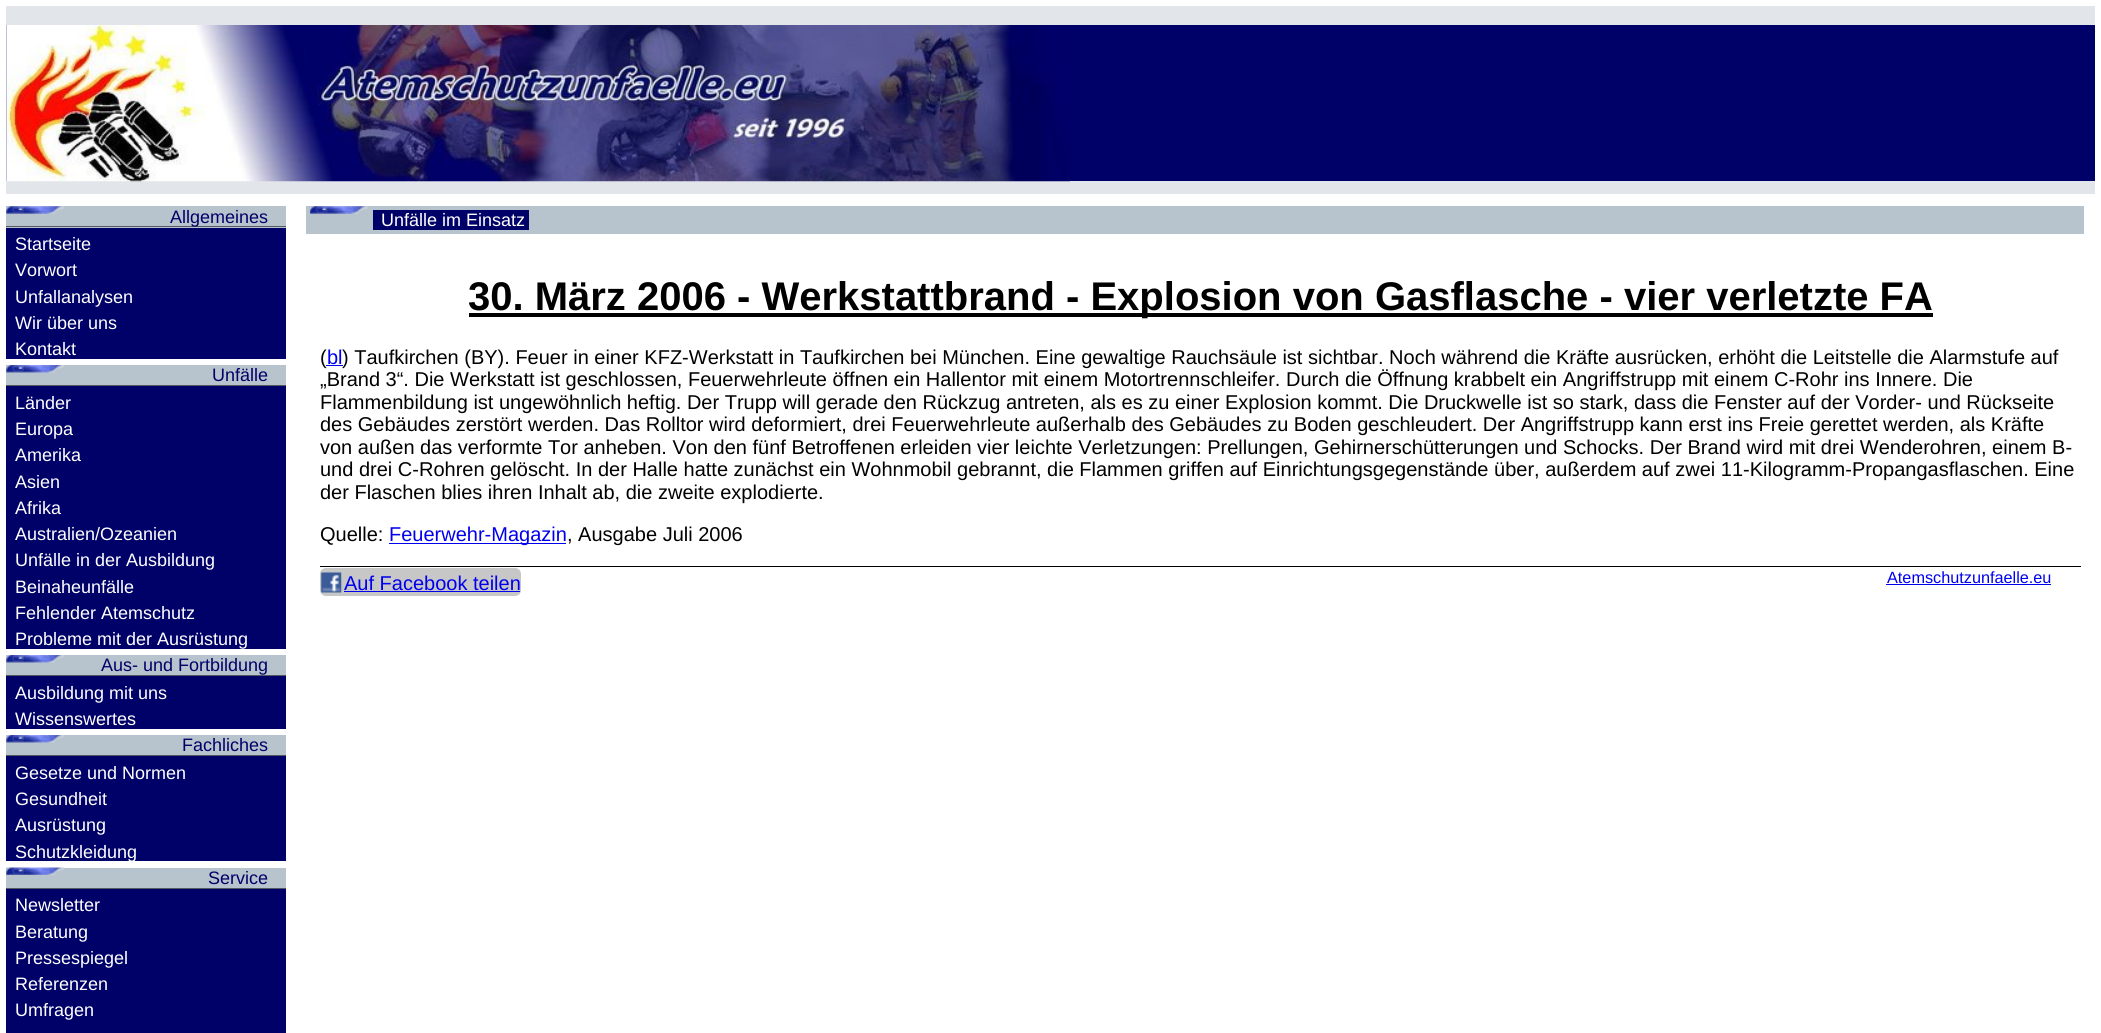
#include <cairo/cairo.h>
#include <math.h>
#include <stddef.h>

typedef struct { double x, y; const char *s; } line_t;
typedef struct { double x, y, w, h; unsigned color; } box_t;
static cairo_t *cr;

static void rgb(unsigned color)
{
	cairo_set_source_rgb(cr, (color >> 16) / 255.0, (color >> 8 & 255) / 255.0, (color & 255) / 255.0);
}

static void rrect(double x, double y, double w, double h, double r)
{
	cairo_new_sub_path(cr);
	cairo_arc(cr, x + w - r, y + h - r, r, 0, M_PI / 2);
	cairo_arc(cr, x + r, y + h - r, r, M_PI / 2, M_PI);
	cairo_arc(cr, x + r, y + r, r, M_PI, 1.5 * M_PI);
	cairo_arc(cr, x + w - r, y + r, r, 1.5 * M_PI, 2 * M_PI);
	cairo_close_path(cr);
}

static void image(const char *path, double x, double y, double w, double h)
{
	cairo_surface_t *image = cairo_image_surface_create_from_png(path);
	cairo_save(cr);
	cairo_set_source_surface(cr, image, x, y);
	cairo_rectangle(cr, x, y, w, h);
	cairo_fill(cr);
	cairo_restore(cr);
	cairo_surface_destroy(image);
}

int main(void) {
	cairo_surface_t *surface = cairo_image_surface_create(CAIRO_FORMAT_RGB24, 2101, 1033);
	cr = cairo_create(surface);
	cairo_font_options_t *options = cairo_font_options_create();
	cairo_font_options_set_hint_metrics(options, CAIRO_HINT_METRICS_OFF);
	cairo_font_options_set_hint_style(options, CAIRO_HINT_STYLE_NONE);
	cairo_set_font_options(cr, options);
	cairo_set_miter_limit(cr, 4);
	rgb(0xffffff);
	cairo_paint(cr);
	{
		static const box_t items[] = {
			{6, 25, 2089, 156, 0x000168},
			{6, 6, 2089, 19, 0xe2e5ea},
			{6, 181, 2089, 13, 0xe2e5ea},
		};
		for (size_t i = 0; i < sizeof items / sizeof *items; i++) {
			rgb(items[i].color);
			cairo_rectangle(cr, items[i].x, items[i].y, items[i].w, items[i].h);
			cairo_fill(cr);
		}
	}
	image("img/1.png", 6, 25, 1064, 157);
	rgb(0x000168);
	cairo_rectangle(cr, 6, 228, 280, 131);
	cairo_fill(cr);
	rgb(0xb7c4ce);
	cairo_rectangle(cr, 6, 206, 280, 22);
	cairo_fill(cr);
	image("img/2.png", 6, 206, 58, 8);
	{
		static const box_t items[] = {
			{6, 226, 280, 1, 0x54585e},
			{6, 386, 280, 263, 0x000168},
			{6, 365, 280, 20, 0xb7c4ce},
		};
		for (size_t i = 0; i < sizeof items / sizeof *items; i++) {
			rgb(items[i].color);
			cairo_rectangle(cr, items[i].x, items[i].y, items[i].w, items[i].h);
			cairo_fill(cr);
		}
	}
	image("img/3.png", 6, 365, 58, 8);
	{
		static const box_t items[] = {
			{6, 385, 280, 1, 0x54585e},
			{6, 676, 280, 53, 0x000168},
			{6, 655, 280, 20, 0xb7c4ce},
		};
		for (size_t i = 0; i < sizeof items / sizeof *items; i++) {
			rgb(items[i].color);
			cairo_rectangle(cr, items[i].x, items[i].y, items[i].w, items[i].h);
			cairo_fill(cr);
		}
	}
	image("img/3.png", 6, 655, 58, 8);
	{
		static const box_t items[] = {
			{6, 675, 280, 1, 0x54585e},
			{6, 756, 280, 105, 0x000168},
			{6, 735, 280, 20, 0xb7c4ce},
		};
		for (size_t i = 0; i < sizeof items / sizeof *items; i++) {
			rgb(items[i].color);
			cairo_rectangle(cr, items[i].x, items[i].y, items[i].w, items[i].h);
			cairo_fill(cr);
		}
	}
	image("img/3.png", 6, 735, 58, 8);
	{
		static const box_t items[] = {
			{6, 755, 280, 1, 0x54585e},
			{6, 889, 280, 144, 0x000168},
			{6, 868, 280, 20, 0xb7c4ce},
		};
		for (size_t i = 0; i < sizeof items / sizeof *items; i++) {
			rgb(items[i].color);
			cairo_rectangle(cr, items[i].x, items[i].y, items[i].w, items[i].h);
			cairo_fill(cr);
		}
	}
	image("img/4.png", 6, 867, 58, 8);
	rgb(0x54585e);
	cairo_rectangle(cr, 6, 888, 280, 1);
	cairo_fill(cr);
	rgb(0xb7c4ce);
	cairo_rectangle(cr, 306, 206, 1778, 28);
	cairo_fill(cr);
	image("img/5.png", 310, 206, 58, 8);
	{
		static const box_t items[] = {
			{373, 210, 156, 20, 0x000168},
			{469, 313, 1464, 4, 0x000000},
			{389, 543, 177, 1, 0x0000ee},
			{320, 566, 1761, 1, 0x000000},
		};
		for (size_t i = 0; i < sizeof items / sizeof *items; i++) {
			rgb(items[i].color);
			cairo_rectangle(cr, items[i].x, items[i].y, items[i].w, items[i].h);
			cairo_fill(cr);
		}
	}
	rgb(0xc7c7c7);
	rrect(320, 568, 201, 28, 6);
	cairo_fill(cr);
	image("img/6.png", 321, 572, 21, 21);
	rgb(0x0000ee);
	cairo_rectangle(cr, 344, 591, 176, 1);
	cairo_fill(cr);
	cairo_rectangle(cr, 1886, 584, 165, 1);
	cairo_fill(cr);
	cairo_select_font_face(cr, "Liberation Sans", CAIRO_FONT_SLANT_NORMAL, CAIRO_FONT_WEIGHT_NORMAL);
	cairo_set_font_size(cr, 18);
	rgb(0x000168);
	cairo_move_to(cr, 170, 223);
	cairo_show_text(cr, "Allgemeines");
	rgb(0xffffff);
	{
		static const line_t items[] = {
			{15, 250, "Startseite"},
			{15, 276, "Vorwort"},
			{15, 303, "Unfallanalysen"},
			{15, 329, "Wir über uns"},
			{15, 355, "Kontakt"},
		};
		for (size_t i = 0; i < sizeof items / sizeof *items; i++) {
			cairo_move_to(cr, items[i].x, items[i].y);
			cairo_show_text(cr, items[i].s);
		}
	}
	rgb(0x000168);
	cairo_move_to(cr, 212, 381);
	cairo_show_text(cr, "Unfälle");
	rgb(0xffffff);
	{
		static const line_t items[] = {
			{15, 409, "Länder"},
			{15, 435, "Europa"},
			{15, 461, "Amerika"},
			{15, 488, "Asien"},
			{15, 514, "Afrika"},
			{15, 540, "Australien/Ozeanien"},
			{15, 566, "Unfälle in der Ausbildung"},
			{15, 593, "Beinaheunfälle"},
			{15, 619, "Fehlender Atemschutz"},
			{15, 645, "Probleme mit der Ausrüstung"},
		};
		for (size_t i = 0; i < sizeof items / sizeof *items; i++) {
			cairo_move_to(cr, items[i].x, items[i].y);
			cairo_show_text(cr, items[i].s);
		}
	}
	rgb(0x000168);
	cairo_move_to(cr, 101, 671);
	cairo_show_text(cr, "Aus- und Fortbildung");
	rgb(0xffffff);
	cairo_move_to(cr, 15, 699);
	cairo_show_text(cr, "Ausbildung mit uns");
	cairo_move_to(cr, 15, 725);
	cairo_show_text(cr, "Wissenswertes");
	rgb(0x000168);
	cairo_move_to(cr, 182, 751);
	cairo_show_text(cr, "Fachliches");
	rgb(0xffffff);
	{
		static const line_t items[] = {
			{15, 779, "Gesetze und Normen"},
			{15, 805, "Gesundheit"},
			{15, 831, "Ausrüstung"},
			{15, 858, "Schutzkleidung"},
		};
		for (size_t i = 0; i < sizeof items / sizeof *items; i++) {
			cairo_move_to(cr, items[i].x, items[i].y);
			cairo_show_text(cr, items[i].s);
		}
	}
	rgb(0x000168);
	cairo_move_to(cr, 208, 884);
	cairo_show_text(cr, "Service");
	rgb(0xffffff);
	{
		static const line_t items[] = {
			{15, 911, "Newsletter"},
			{15, 938, "Beratung"},
			{15, 964, "Pressespiegel"},
			{15, 990, "Referenzen"},
			{15, 1016, "Umfragen"},
			{381, 226, "Unfälle im Einsatz"},
		};
		for (size_t i = 0; i < sizeof items / sizeof *items; i++) {
			cairo_move_to(cr, items[i].x, items[i].y);
			cairo_show_text(cr, items[i].s);
		}
	}
	cairo_select_font_face(cr, "Liberation Sans", CAIRO_FONT_SLANT_NORMAL, CAIRO_FONT_WEIGHT_BOLD);
	cairo_set_font_size(cr, 40);
	rgb(0x000000);
	cairo_move_to(cr, 468, 310);
	cairo_show_text(cr, "30. März 2006 - Werkstattbrand - Explosion von Gasflasche - vier verletzte FA");
	cairo_select_font_face(cr, "Liberation Sans", CAIRO_FONT_SLANT_NORMAL, CAIRO_FONT_WEIGHT_NORMAL);
	cairo_set_font_size(cr, 20);
	cairo_move_to(cr, 320, 364);
	cairo_show_text(cr, "(");
	rgb(0x0000ee);
	cairo_move_to(cr, 327, 364);
	cairo_show_text(cr, "bl");
	cairo_rectangle(cr, 326, 365, 17, 1);
	cairo_fill(cr);
	rgb(0x000000);
	{
		static const line_t items[] = {
			{342, 364, ") Taufkirchen (BY). Feuer in einer KFZ-Werkstatt in Taufkirchen bei München. Eine gewaltige Rauchsäule ist sichtbar. Noch während die Kräfte ausrücken, erhöht die Leitstelle die Alarmstufe auf"},
			{320, 386, "„Brand 3“. Die Werkstatt ist geschlossen, Feuerwehrleute öffnen ein Hallentor mit einem Motortrennschleifer. Durch die Öffnung krabbelt ein Angriffstrupp mit einem C-Rohr ins Innere. Die"},
			{320, 409, "Flammenbildung ist ungewöhnlich heftig. Der Trupp will gerade den Rückzug antreten, als es zu einer Explosion kommt. Die Druckwelle ist so stark, dass die Fenster auf der Vorder- und Rückseite"},
			{320, 431, "des Gebäudes zerstört werden. Das Rolltor wird deformiert, drei Feuerwehrleute außerhalb des Gebäudes zu Boden geschleudert. Der Angriffstrupp kann erst ins Freie gerettet werden, als Kräfte"},
			{320, 454, "von außen das verformte Tor anheben. Von den fünf Betroffenen erleiden vier leichte Verletzungen: Prellungen, Gehirnerschütterungen und Schocks. Der Brand wird mit drei Wenderohren, einem B-"},
			{320, 476, "und drei C-Rohren gelöscht. In der Halle hatte zunächst ein Wohnmobil gebrannt, die Flammen griffen auf Einrichtungsgegenstände über, außerdem auf zwei 11-Kilogramm-Propangasflaschen. Eine"},
			{320, 499, "der Flaschen blies ihren Inhalt ab, die zweite explodierte."},
			{320, 541, "Quelle:"},
		};
		for (size_t i = 0; i < sizeof items / sizeof *items; i++) {
			cairo_move_to(cr, items[i].x, items[i].y);
			cairo_show_text(cr, items[i].s);
		}
	}
	rgb(0x0000ee);
	cairo_move_to(cr, 389, 541);
	cairo_show_text(cr, "Feuerwehr-Magazin");
	rgb(0x000000);
	cairo_move_to(cr, 567, 541);
	cairo_show_text(cr, ", Ausgabe Juli 2006");
	rgb(0x0000ee);
	cairo_move_to(cr, 344, 590);
	cairo_show_text(cr, "Auf Facebook teilen");
	cairo_set_font_size(cr, 16.25);
	cairo_move_to(cr, 1887, 583);
	cairo_show_text(cr, "Atemschutzunfaelle.eu");
	cairo_surface_write_to_png(surface, "page.png");
	cairo_font_options_destroy(options);
	cairo_destroy(cr);
	cairo_surface_destroy(surface);
	return 0;
}
